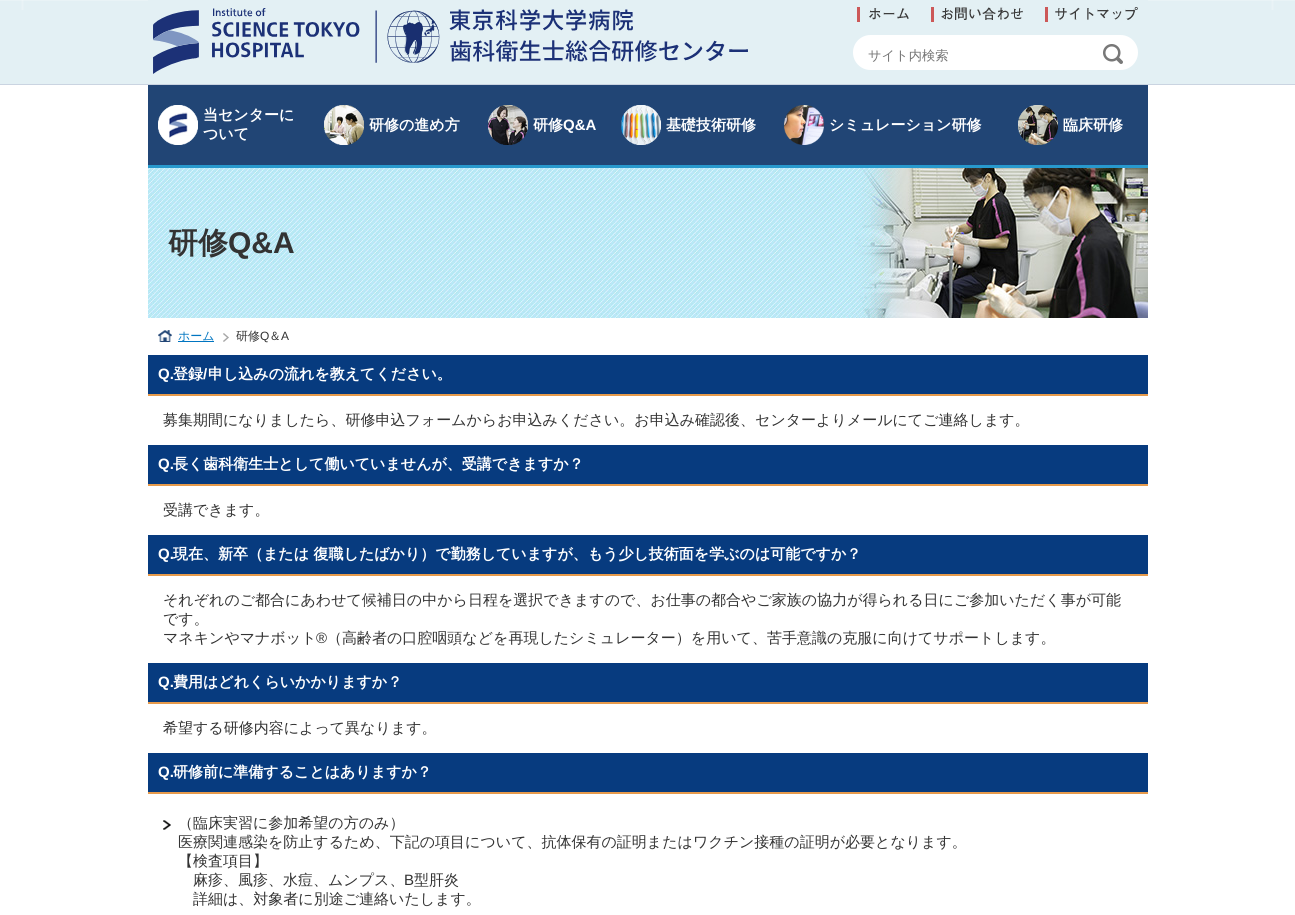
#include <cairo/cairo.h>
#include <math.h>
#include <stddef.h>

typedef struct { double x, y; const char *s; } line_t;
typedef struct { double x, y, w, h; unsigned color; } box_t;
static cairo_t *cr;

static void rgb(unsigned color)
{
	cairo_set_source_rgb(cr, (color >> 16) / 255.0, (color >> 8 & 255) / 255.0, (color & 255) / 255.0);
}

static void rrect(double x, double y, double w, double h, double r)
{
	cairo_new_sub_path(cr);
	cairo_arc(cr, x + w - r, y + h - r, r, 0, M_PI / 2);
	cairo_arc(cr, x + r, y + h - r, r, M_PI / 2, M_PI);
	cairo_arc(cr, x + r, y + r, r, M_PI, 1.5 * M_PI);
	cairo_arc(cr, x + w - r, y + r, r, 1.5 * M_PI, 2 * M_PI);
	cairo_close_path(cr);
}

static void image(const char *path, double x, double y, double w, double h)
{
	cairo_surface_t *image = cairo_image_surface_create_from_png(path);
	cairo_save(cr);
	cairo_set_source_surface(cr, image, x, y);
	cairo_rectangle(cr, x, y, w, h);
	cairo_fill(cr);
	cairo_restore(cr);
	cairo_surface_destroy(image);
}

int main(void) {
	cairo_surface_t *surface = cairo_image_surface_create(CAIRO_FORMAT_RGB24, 1295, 915);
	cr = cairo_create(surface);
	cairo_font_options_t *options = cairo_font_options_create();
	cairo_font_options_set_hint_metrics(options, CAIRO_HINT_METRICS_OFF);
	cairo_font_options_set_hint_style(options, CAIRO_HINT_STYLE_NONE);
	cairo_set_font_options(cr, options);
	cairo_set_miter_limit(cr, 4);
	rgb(0xffffff);
	cairo_paint(cr);
	image("img/1.png", 0, 0, 1295, 85);
	rgb(0xe3f0f4);
	cairo_rectangle(cr, 148, 0, 1000, 10);
	cairo_fill(cr);
	image("img/2.png", 153, 8, 595, 66);
	image("img/3.png", 857, 7, 52, 15);
	image("img/4.png", 931, 7, 92, 15);
	image("img/5.png", 1045, 7, 93, 15);
	rgb(0xffffff);
	rrect(853, 35, 285, 35, 17.5);
	cairo_fill(cr);
	image("img/6.png", 1103, 44, 20, 20);
	rgb(0x214575);
	cairo_rectangle(cr, 148, 85, 1000, 80);
	cairo_fill(cr);
	rgb(0x2899cd);
	cairo_rectangle(cr, 148, 165, 1000, 3);
	cairo_fill(cr);
	image("img/7.png", 158, 105, 40, 40);
	image("img/8.png", 324, 105, 40, 40);
	image("img/9.png", 488, 105, 40, 40);
	image("img/10.png", 621, 105, 40, 40);
	image("img/11.png", 784, 105, 40, 40);
	image("img/12.png", 1018, 105, 40, 40);
	image("img/13.png", 148, 168, 1000, 150);
	image("img/14.png", 158, 330, 14, 12);
	rgb(0x0075c1);
	cairo_rectangle(cr, 178, 341, 36, 1);
	cairo_fill(cr);
	image("img/15.png", 223, 333, 6, 9);
	{
		static const box_t items[] = {
			{148, 355, 1000, 39, 0x073b7f},
			{148, 394, 1000, 2, 0xe69a4b},
			{148, 445, 1000, 39, 0x073b7f},
			{148, 484, 1000, 2, 0xe69a4b},
			{148, 535, 1000, 39, 0x073b7f},
			{148, 574, 1000, 2, 0xe69a4b},
			{148, 663, 1000, 39, 0x073b7f},
			{148, 702, 1000, 2, 0xe69a4b},
			{148, 753, 1000, 39, 0x073b7f},
			{148, 792, 1000, 2, 0xe69a4b},
		};
		for (size_t i = 0; i < sizeof items / sizeof *items; i++) {
			rgb(items[i].color);
			cairo_rectangle(cr, items[i].x, items[i].y, items[i].w, items[i].h);
			cairo_fill(cr);
		}
	}
	image("img/16.png", 163, 820, 8, 10);
	cairo_select_font_face(cr, "WenQuanYi Zen Hei Medium", CAIRO_FONT_SLANT_NORMAL, CAIRO_FONT_WEIGHT_NORMAL);
	cairo_set_font_size(cr, 13.25);
	rgb(0x757575);
	cairo_move_to(cr, 868, 60);
	cairo_show_text(cr, "サイト内検索");
	cairo_select_font_face(cr, "WenQuanYi Zen Hei", CAIRO_FONT_SLANT_NORMAL, CAIRO_FONT_WEIGHT_BOLD);
	cairo_set_font_size(cr, 15);
	rgb(0xffffff);
	{
		static const line_t items[] = {
			{203, 120, "当センターに"},
			{203, 139, "ついて"},
			{369, 130, "研修の進め方"},
			{533, 130, "研修"},
		};
		for (size_t i = 0; i < sizeof items / sizeof *items; i++) {
			cairo_move_to(cr, items[i].x, items[i].y);
			cairo_show_text(cr, items[i].s);
		}
	}
	cairo_select_font_face(cr, "Liberation Sans", CAIRO_FONT_SLANT_NORMAL, CAIRO_FONT_WEIGHT_BOLD);
	cairo_move_to(cr, 563, 130);
	cairo_show_text(cr, "Q&A");
	cairo_select_font_face(cr, "WenQuanYi Zen Hei", CAIRO_FONT_SLANT_NORMAL, CAIRO_FONT_WEIGHT_BOLD);
	{
		static const line_t items[] = {
			{666, 130, "基礎技術研修"},
			{829, 130, "シミュレーション研修"},
			{1063, 130, "臨床研修"},
		};
		for (size_t i = 0; i < sizeof items / sizeof *items; i++) {
			cairo_move_to(cr, items[i].x, items[i].y);
			cairo_show_text(cr, items[i].s);
		}
	}
	cairo_set_font_size(cr, 30);
	rgb(0x333333);
	cairo_move_to(cr, 168, 253);
	cairo_show_text(cr, "研修");
	cairo_select_font_face(cr, "Liberation Sans", CAIRO_FONT_SLANT_NORMAL, CAIRO_FONT_WEIGHT_BOLD);
	cairo_move_to(cr, 228, 253);
	cairo_show_text(cr, "Q&A");
	cairo_select_font_face(cr, "WenQuanYi Zen Hei Medium", CAIRO_FONT_SLANT_NORMAL, CAIRO_FONT_WEIGHT_NORMAL);
	cairo_set_font_size(cr, 12);
	rgb(0x0075c1);
	cairo_move_to(cr, 178, 340);
	cairo_show_text(cr, "ホーム");
	rgb(0x333333);
	cairo_move_to(cr, 236, 340);
	cairo_show_text(cr, "研修");
	cairo_select_font_face(cr, "Liberation Sans", CAIRO_FONT_SLANT_NORMAL, CAIRO_FONT_WEIGHT_NORMAL);
	cairo_move_to(cr, 260, 340);
	cairo_show_text(cr, "Q");
	cairo_select_font_face(cr, "WenQuanYi Zen Hei Medium", CAIRO_FONT_SLANT_NORMAL, CAIRO_FONT_WEIGHT_NORMAL);
	cairo_move_to(cr, 269, 340);
	cairo_show_text(cr, "＆");
	cairo_select_font_face(cr, "Liberation Sans", CAIRO_FONT_SLANT_NORMAL, CAIRO_FONT_WEIGHT_NORMAL);
	cairo_move_to(cr, 281, 340);
	cairo_show_text(cr, "A");
	cairo_select_font_face(cr, "Liberation Sans", CAIRO_FONT_SLANT_NORMAL, CAIRO_FONT_WEIGHT_BOLD);
	cairo_set_font_size(cr, 15);
	rgb(0xffffff);
	cairo_move_to(cr, 158, 379);
	cairo_show_text(cr, "Q.");
	cairo_select_font_face(cr, "WenQuanYi Zen Hei", CAIRO_FONT_SLANT_NORMAL, CAIRO_FONT_WEIGHT_BOLD);
	cairo_move_to(cr, 173, 379);
	cairo_show_text(cr, "登録");
	cairo_select_font_face(cr, "Liberation Sans", CAIRO_FONT_SLANT_NORMAL, CAIRO_FONT_WEIGHT_BOLD);
	cairo_move_to(cr, 203, 379);
	cairo_show_text(cr, "/");
	cairo_select_font_face(cr, "WenQuanYi Zen Hei", CAIRO_FONT_SLANT_NORMAL, CAIRO_FONT_WEIGHT_BOLD);
	cairo_move_to(cr, 208, 379);
	cairo_show_text(cr, "申し込みの流れを教えてください。");
	cairo_select_font_face(cr, "WenQuanYi Zen Hei Medium", CAIRO_FONT_SLANT_NORMAL, CAIRO_FONT_WEIGHT_NORMAL);
	rgb(0x333333);
	cairo_move_to(cr, 163, 425);
	cairo_show_text(cr, "募集期間になりましたら、研修申込フォームからお申込みください。お申込み確認後、センターよりメールにてご連絡します。");
	cairo_select_font_face(cr, "Liberation Sans", CAIRO_FONT_SLANT_NORMAL, CAIRO_FONT_WEIGHT_BOLD);
	rgb(0xffffff);
	cairo_move_to(cr, 158, 469);
	cairo_show_text(cr, "Q.");
	cairo_select_font_face(cr, "WenQuanYi Zen Hei", CAIRO_FONT_SLANT_NORMAL, CAIRO_FONT_WEIGHT_BOLD);
	cairo_move_to(cr, 173, 469);
	cairo_show_text(cr, "長く歯科衛生士として働いていませんが、受講できますか？");
	cairo_select_font_face(cr, "WenQuanYi Zen Hei Medium", CAIRO_FONT_SLANT_NORMAL, CAIRO_FONT_WEIGHT_NORMAL);
	rgb(0x333333);
	cairo_move_to(cr, 163, 515);
	cairo_show_text(cr, "受講できます。");
	cairo_select_font_face(cr, "Liberation Sans", CAIRO_FONT_SLANT_NORMAL, CAIRO_FONT_WEIGHT_BOLD);
	rgb(0xffffff);
	cairo_move_to(cr, 158, 559);
	cairo_show_text(cr, "Q.");
	cairo_select_font_face(cr, "WenQuanYi Zen Hei", CAIRO_FONT_SLANT_NORMAL, CAIRO_FONT_WEIGHT_BOLD);
	cairo_move_to(cr, 173, 559);
	cairo_show_text(cr, "現在、新卒（または 復職したばかり）で勤務していますが、もう少し技術面を学ぶのは可能ですか？");
	cairo_select_font_face(cr, "WenQuanYi Zen Hei Medium", CAIRO_FONT_SLANT_NORMAL, CAIRO_FONT_WEIGHT_NORMAL);
	rgb(0x333333);
	{
		static const line_t items[] = {
			{163, 605, "それぞれのご都合にあわせて候補日の中から日程を選択できますので、お仕事の都合やご家族の協力が得られる日にご参加いただく事が可能"},
			{163, 624, "です。"},
			{163, 643, "マネキンやマナボット"},
		};
		for (size_t i = 0; i < sizeof items / sizeof *items; i++) {
			cairo_move_to(cr, items[i].x, items[i].y);
			cairo_show_text(cr, items[i].s);
		}
	}
	cairo_select_font_face(cr, "Liberation Sans", CAIRO_FONT_SLANT_NORMAL, CAIRO_FONT_WEIGHT_NORMAL);
	cairo_move_to(cr, 316, 643);
	cairo_show_text(cr, "®");
	cairo_select_font_face(cr, "WenQuanYi Zen Hei Medium", CAIRO_FONT_SLANT_NORMAL, CAIRO_FONT_WEIGHT_NORMAL);
	cairo_move_to(cr, 327, 643);
	cairo_show_text(cr, "（高齢者の口腔咽頭などを再現したシミュレーター）を用いて、苦手意識の克服に向けてサポートします。");
	cairo_select_font_face(cr, "Liberation Sans", CAIRO_FONT_SLANT_NORMAL, CAIRO_FONT_WEIGHT_BOLD);
	rgb(0xffffff);
	cairo_move_to(cr, 158, 687);
	cairo_show_text(cr, "Q.");
	cairo_select_font_face(cr, "WenQuanYi Zen Hei", CAIRO_FONT_SLANT_NORMAL, CAIRO_FONT_WEIGHT_BOLD);
	cairo_move_to(cr, 173, 687);
	cairo_show_text(cr, "費用はどれくらいかかりますか？");
	cairo_select_font_face(cr, "WenQuanYi Zen Hei Medium", CAIRO_FONT_SLANT_NORMAL, CAIRO_FONT_WEIGHT_NORMAL);
	rgb(0x333333);
	cairo_move_to(cr, 163, 733);
	cairo_show_text(cr, "希望する研修内容によって異なります。");
	cairo_select_font_face(cr, "Liberation Sans", CAIRO_FONT_SLANT_NORMAL, CAIRO_FONT_WEIGHT_BOLD);
	rgb(0xffffff);
	cairo_move_to(cr, 158, 777);
	cairo_show_text(cr, "Q.");
	cairo_select_font_face(cr, "WenQuanYi Zen Hei", CAIRO_FONT_SLANT_NORMAL, CAIRO_FONT_WEIGHT_BOLD);
	cairo_move_to(cr, 173, 777);
	cairo_show_text(cr, "研修前に準備することはありますか？");
	cairo_select_font_face(cr, "WenQuanYi Zen Hei Medium", CAIRO_FONT_SLANT_NORMAL, CAIRO_FONT_WEIGHT_NORMAL);
	rgb(0x333333);
	{
		static const line_t items[] = {
			{178, 828, "（臨床実習に参加希望の方のみ）"},
			{178, 847, "医療関連感染を防止するため、下記の項目について、抗体保有の証明またはワクチン接種の証明が必要となります。"},
			{178, 866, "【検査項目】"},
			{193, 885, "麻疹、風疹、水痘、ムンプス、"},
		};
		for (size_t i = 0; i < sizeof items / sizeof *items; i++) {
			cairo_move_to(cr, items[i].x, items[i].y);
			cairo_show_text(cr, items[i].s);
		}
	}
	cairo_select_font_face(cr, "Liberation Sans", CAIRO_FONT_SLANT_NORMAL, CAIRO_FONT_WEIGHT_NORMAL);
	cairo_move_to(cr, 404, 885);
	cairo_show_text(cr, "B");
	cairo_select_font_face(cr, "WenQuanYi Zen Hei Medium", CAIRO_FONT_SLANT_NORMAL, CAIRO_FONT_WEIGHT_NORMAL);
	cairo_move_to(cr, 414, 885);
	cairo_show_text(cr, "型肝炎");
	cairo_move_to(cr, 193, 904);
	cairo_show_text(cr, "詳細は、対象者に別途ご連絡いたします。");
	cairo_surface_write_to_png(surface, "page.png");
	cairo_font_options_destroy(options);
	cairo_destroy(cr);
	cairo_surface_destroy(surface);
	return 0;
}
